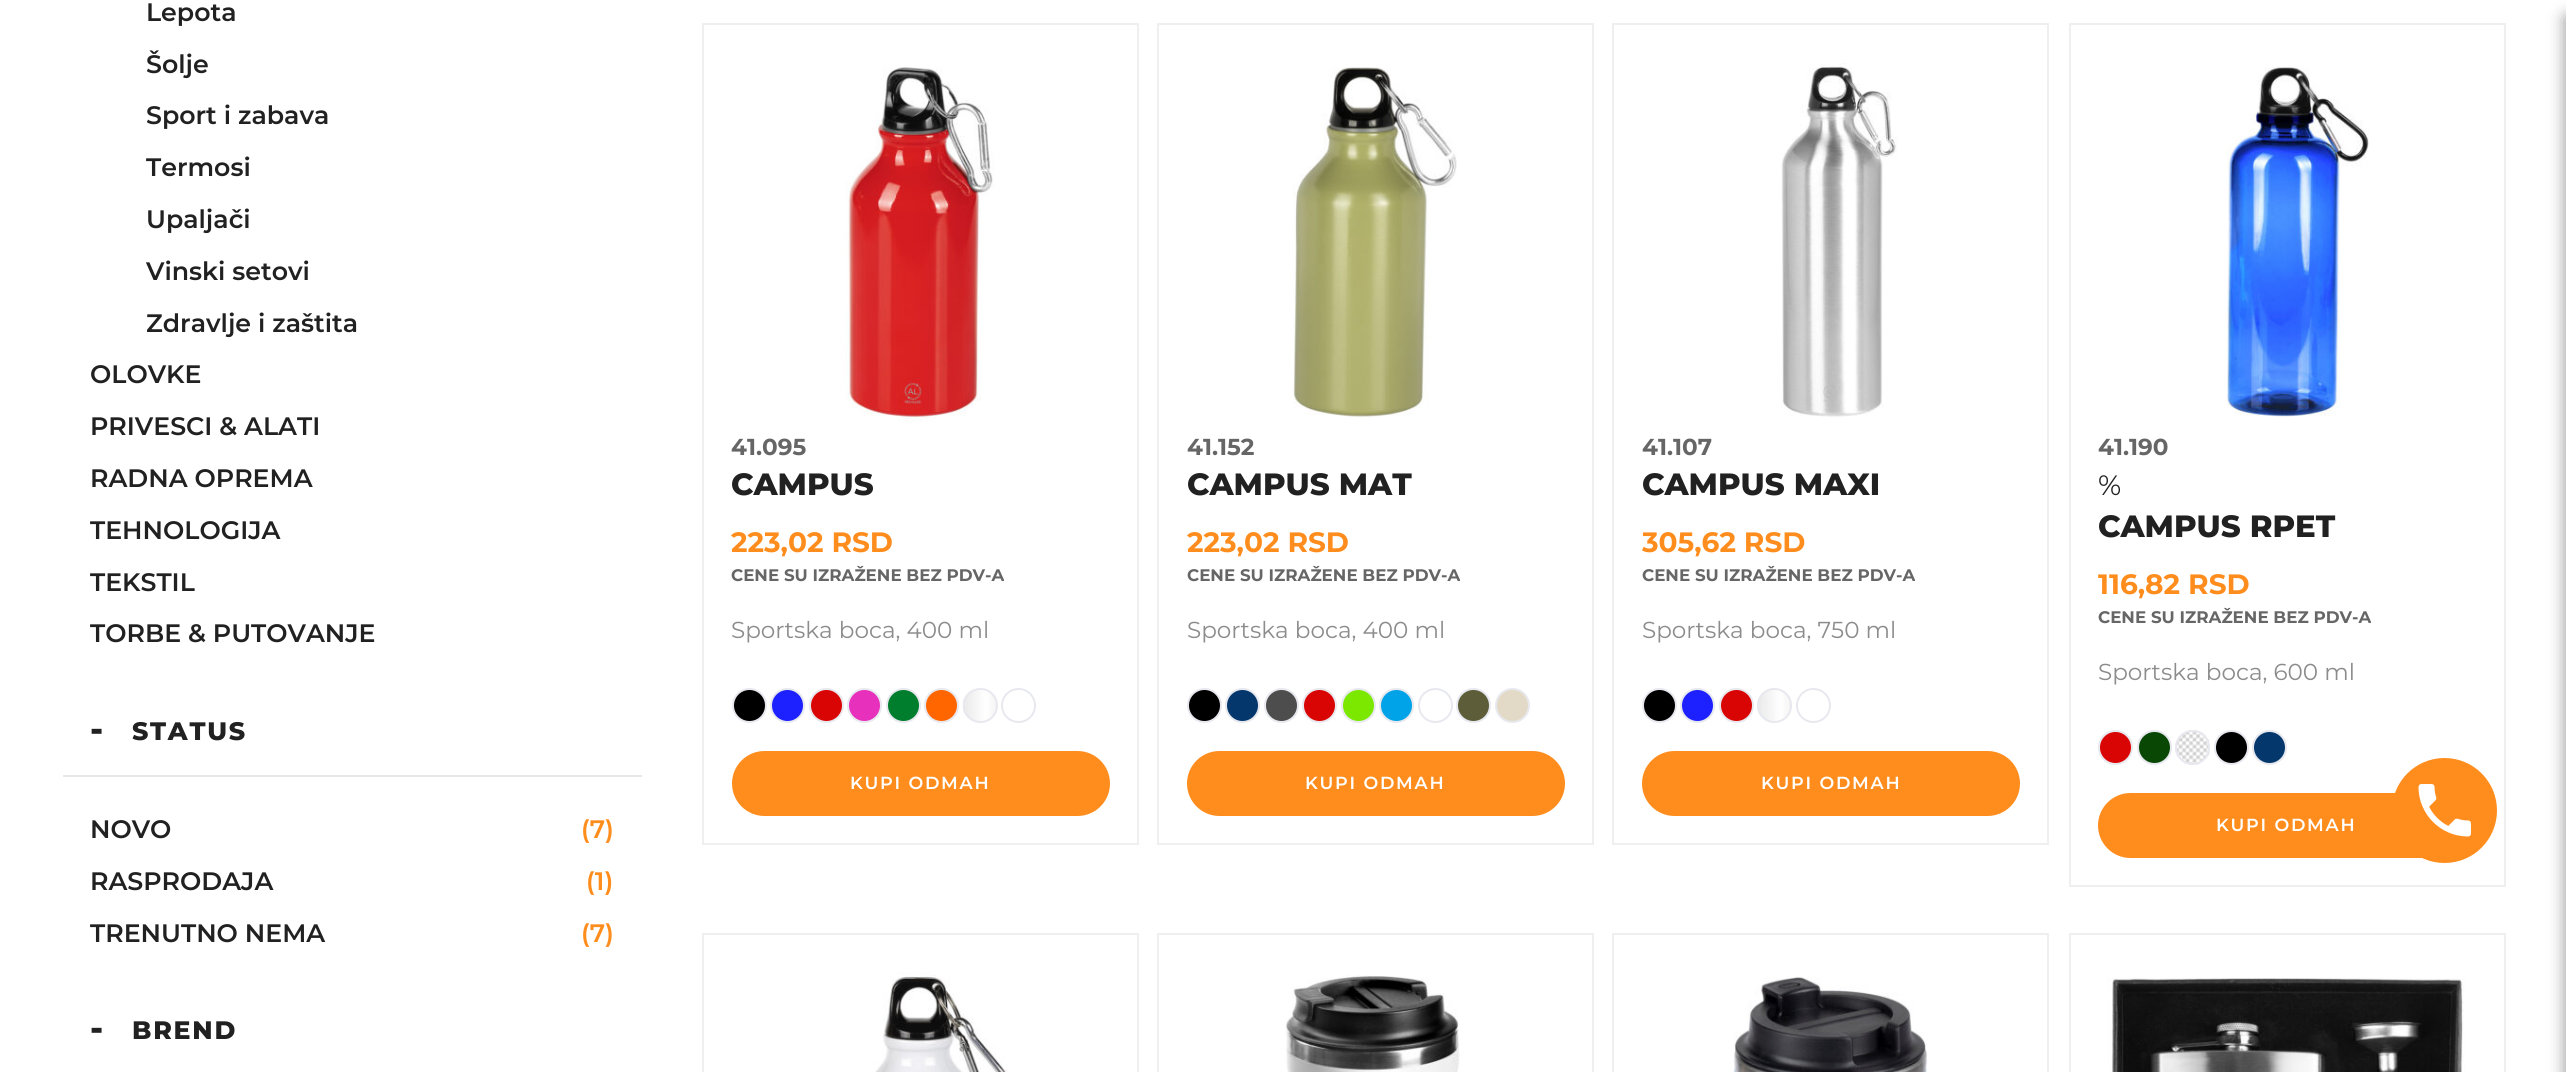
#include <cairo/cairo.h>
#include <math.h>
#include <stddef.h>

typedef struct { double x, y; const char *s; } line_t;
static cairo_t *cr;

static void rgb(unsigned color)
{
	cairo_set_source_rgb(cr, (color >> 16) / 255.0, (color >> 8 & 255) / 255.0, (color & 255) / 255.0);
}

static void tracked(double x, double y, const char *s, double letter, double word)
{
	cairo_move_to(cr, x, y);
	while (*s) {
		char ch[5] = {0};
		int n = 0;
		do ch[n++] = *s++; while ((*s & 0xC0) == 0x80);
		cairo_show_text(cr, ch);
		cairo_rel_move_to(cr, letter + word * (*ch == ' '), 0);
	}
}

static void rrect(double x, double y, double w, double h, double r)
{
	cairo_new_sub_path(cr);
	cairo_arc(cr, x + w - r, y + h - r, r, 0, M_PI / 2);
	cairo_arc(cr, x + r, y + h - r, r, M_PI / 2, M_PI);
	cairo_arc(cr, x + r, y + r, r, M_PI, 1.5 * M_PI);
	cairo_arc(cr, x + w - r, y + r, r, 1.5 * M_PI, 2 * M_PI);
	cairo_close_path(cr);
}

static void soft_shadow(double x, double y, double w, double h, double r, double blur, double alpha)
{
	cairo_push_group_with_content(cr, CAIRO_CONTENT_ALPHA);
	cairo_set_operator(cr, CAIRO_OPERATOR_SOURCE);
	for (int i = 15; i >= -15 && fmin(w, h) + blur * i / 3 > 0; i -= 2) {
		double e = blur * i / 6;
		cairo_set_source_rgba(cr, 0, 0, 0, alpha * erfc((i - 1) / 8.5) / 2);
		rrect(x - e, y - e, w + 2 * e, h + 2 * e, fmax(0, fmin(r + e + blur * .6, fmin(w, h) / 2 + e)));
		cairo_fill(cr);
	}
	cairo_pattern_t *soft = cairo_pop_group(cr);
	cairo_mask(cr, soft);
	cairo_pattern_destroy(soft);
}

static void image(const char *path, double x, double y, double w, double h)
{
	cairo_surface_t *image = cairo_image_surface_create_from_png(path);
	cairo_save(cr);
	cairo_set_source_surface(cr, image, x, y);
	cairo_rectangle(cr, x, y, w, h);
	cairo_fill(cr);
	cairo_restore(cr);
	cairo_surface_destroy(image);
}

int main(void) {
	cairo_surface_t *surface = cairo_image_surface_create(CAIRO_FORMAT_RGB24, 2566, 1072);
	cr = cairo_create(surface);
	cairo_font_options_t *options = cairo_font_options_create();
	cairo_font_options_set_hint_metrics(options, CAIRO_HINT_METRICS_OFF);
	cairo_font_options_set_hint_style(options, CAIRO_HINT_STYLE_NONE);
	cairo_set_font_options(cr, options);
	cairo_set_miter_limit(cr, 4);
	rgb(0xffffff);
	cairo_paint(cr);
	rgb(0xe8e8e8);
	cairo_rectangle(cr, 63, 775, 579, 2);
	cairo_fill(cr);
	cairo_rectangle(cr, 703, 24, 435, 820);
	rgb(0xefefef);
	cairo_stroke(cr);
	image("img/1.png", 845, 67, 150, 356);
	rgb(0x000000);
	cairo_arc(cr, 749.5, 705.5, 16.5, 0, 2 * M_PI);
	cairo_fill_preserve(cr);
	rgb(0xe8e9ef);
	cairo_stroke(cr);
	rgb(0x1d21ff);
	cairo_arc(cr, 787.5, 705.5, 16.5, 0, 2 * M_PI);
	cairo_fill_preserve(cr);
	rgb(0xe8e9ef);
	cairo_stroke(cr);
	rgb(0xd90504);
	cairo_arc(cr, 826.5, 705.5, 16.5, 0, 2 * M_PI);
	cairo_fill_preserve(cr);
	rgb(0xe8e9ef);
	cairo_stroke(cr);
	rgb(0xe730bc);
	cairo_arc(cr, 864.5, 705.5, 16.5, 0, 2 * M_PI);
	cairo_fill_preserve(cr);
	rgb(0xe8e9ef);
	cairo_stroke(cr);
	rgb(0x007d2d);
	cairo_arc(cr, 903.5, 705.5, 16.5, 0, 2 * M_PI);
	cairo_fill_preserve(cr);
	rgb(0xe8e9ef);
	cairo_stroke(cr);
	rgb(0xff6600);
	cairo_arc(cr, 941.5, 705.5, 16.5, 0, 2 * M_PI);
	cairo_fill_preserve(cr);
	rgb(0xe8e9ef);
	cairo_stroke(cr);
	image("img/2.png", 962, 688, 35, 35);
	cairo_arc(cr, 980.5, 705.5, 16.5, 0, 2 * M_PI);
	cairo_stroke(cr);
	cairo_arc(cr, 1018.5, 705.5, 16.5, 0, 2 * M_PI);
	cairo_stroke(cr);
	rgb(0xff8d1e);
	rrect(732, 751, 378, 65, 32.5);
	cairo_fill(cr);
	cairo_rectangle(cr, 1158, 24, 435, 820);
	rgb(0xefefef);
	cairo_stroke(cr);
	image("img/3.png", 1293, 67, 164, 351);
	rgb(0x000000);
	cairo_arc(cr, 1204.5, 705.5, 16.5, 0, 2 * M_PI);
	cairo_fill_preserve(cr);
	rgb(0xe8e9ef);
	cairo_stroke(cr);
	rgb(0x04386d);
	cairo_arc(cr, 1242.5, 705.5, 16.5, 0, 2 * M_PI);
	cairo_fill_preserve(cr);
	rgb(0xe8e9ef);
	cairo_stroke(cr);
	rgb(0x4d4d4d);
	cairo_arc(cr, 1281.5, 705.5, 16.5, 0, 2 * M_PI);
	cairo_fill_preserve(cr);
	rgb(0xe8e9ef);
	cairo_stroke(cr);
	rgb(0xd90504);
	cairo_arc(cr, 1319.5, 705.5, 16.5, 0, 2 * M_PI);
	cairo_fill_preserve(cr);
	rgb(0xe8e9ef);
	cairo_stroke(cr);
	rgb(0x7ce800);
	cairo_arc(cr, 1358.5, 705.5, 16.5, 0, 2 * M_PI);
	cairo_fill_preserve(cr);
	rgb(0xe8e9ef);
	cairo_stroke(cr);
	rgb(0x00a3e8);
	cairo_arc(cr, 1396.5, 705.5, 16.5, 0, 2 * M_PI);
	cairo_fill_preserve(cr);
	rgb(0xe8e9ef);
	cairo_stroke(cr);
	cairo_arc(cr, 1435.5, 705.5, 16.5, 0, 2 * M_PI);
	cairo_stroke(cr);
	rgb(0x5d5d39);
	cairo_arc(cr, 1473.5, 705.5, 16.5, 0, 2 * M_PI);
	cairo_fill_preserve(cr);
	rgb(0xe8e9ef);
	cairo_stroke(cr);
	rgb(0xe2dac7);
	cairo_arc(cr, 1512.5, 705.5, 16.5, 0, 2 * M_PI);
	cairo_fill_preserve(cr);
	rgb(0xe8e9ef);
	cairo_stroke(cr);
	rgb(0xff8d1e);
	rrect(1187, 751, 378, 65, 32.5);
	cairo_fill(cr);
	cairo_rectangle(cr, 1613, 24, 435, 820);
	rgb(0xefefef);
	cairo_stroke(cr);
	image("img/4.png", 1781, 63, 117, 354);
	rgb(0x000000);
	cairo_arc(cr, 1659.5, 705.5, 16.5, 0, 2 * M_PI);
	cairo_fill_preserve(cr);
	rgb(0xe8e9ef);
	cairo_stroke(cr);
	rgb(0x1d21ff);
	cairo_arc(cr, 1697.5, 705.5, 16.5, 0, 2 * M_PI);
	cairo_fill_preserve(cr);
	rgb(0xe8e9ef);
	cairo_stroke(cr);
	rgb(0xd90504);
	cairo_arc(cr, 1736.5, 705.5, 16.5, 0, 2 * M_PI);
	cairo_fill_preserve(cr);
	rgb(0xe8e9ef);
	cairo_stroke(cr);
	image("img/5.png", 1757, 688, 35, 35);
	cairo_arc(cr, 1774.5, 705.5, 16.5, 0, 2 * M_PI);
	cairo_stroke(cr);
	cairo_arc(cr, 1813.5, 705.5, 16.5, 0, 2 * M_PI);
	cairo_stroke(cr);
	rgb(0xff8d1e);
	rrect(1642, 751, 378, 65, 32.5);
	cairo_fill(cr);
	cairo_rectangle(cr, 2070, 24, 435, 862);
	rgb(0xefefef);
	cairo_stroke(cr);
	image("img/6.png", 2227, 66, 142, 351);
	rgb(0xd90504);
	cairo_arc(cr, 2115.5, 747.5, 16.5, 0, 2 * M_PI);
	cairo_fill_preserve(cr);
	rgb(0xe8e9ef);
	cairo_stroke(cr);
	rgb(0x094705);
	cairo_arc(cr, 2154.5, 747.5, 16.5, 0, 2 * M_PI);
	cairo_fill_preserve(cr);
	rgb(0xe8e9ef);
	cairo_stroke(cr);
	image("img/7.png", 2175, 730, 35, 35);
	cairo_arc(cr, 2192.5, 747.5, 16.5, 0, 2 * M_PI);
	cairo_stroke(cr);
	rgb(0x000000);
	cairo_arc(cr, 2231.5, 747.5, 16.5, 0, 2 * M_PI);
	cairo_fill_preserve(cr);
	rgb(0xe8e9ef);
	cairo_stroke(cr);
	rgb(0x04386d);
	cairo_arc(cr, 2269.5, 747.5, 16.5, 0, 2 * M_PI);
	cairo_fill_preserve(cr);
	rgb(0xe8e9ef);
	cairo_stroke(cr);
	rgb(0xff8d1e);
	rrect(2098, 793, 378, 65, 32.5);
	cairo_fill(cr);
	cairo_rectangle(cr, 703, 934, 435, 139);
	rgb(0xefefef);
	cairo_stroke(cr);
	image("img/8.png", 875, 972, 133, 100);
	cairo_rectangle(cr, 1158, 934, 435, 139);
	cairo_stroke(cr);
	image("img/9.png", 1285, 975, 175, 97);
	cairo_rectangle(cr, 1613, 934, 435, 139);
	cairo_stroke(cr);
	image("img/10.png", 1733, 976, 195, 96);
	cairo_rectangle(cr, 2070, 934, 435, 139);
	cairo_stroke(cr);
	image("img/11.png", 2107, 978, 358, 94);
	rgb(0x000000);
	soft_shadow(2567, 18, 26, 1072, 0, 9, 0.5);
	rgb(0xff8d1e);
	cairo_arc(cr, 2444.5, 810.5, 52.5, 0, 2 * M_PI);
	cairo_fill(cr);
	image("img/12.png", 2418, 784, 53, 53);
	cairo_select_font_face(cr, "Montserrat SemiBold", CAIRO_FONT_SLANT_NORMAL, CAIRO_FONT_WEIGHT_NORMAL);
	cairo_set_font_size(cr, 25.25);
	rgb(0x212121);
	{
		static const line_t items[] = {
			{146, 21, "Lepota"},
			{146, 73, "Šolje"},
			{146, 124, "Sport i zabava"},
			{146, 176, "Termosi"},
			{146, 228, "Upaljači"},
			{146, 280, "Vinski setovi"},
			{146, 332, "Zdravlje i zaštita"},
			{90, 383, "OLOVKE"},
			{90, 435, "PRIVESCI & ALATI"},
			{90, 487, "RADNA OPREMA"},
			{90, 539, "TEHNOLOGIJA"},
			{90, 591, "TEKSTIL"},
			{90, 642, "TORBE & PUTOVANJE"},
		};
		for (size_t i = 0; i < sizeof items / sizeof *items; i++) {
			cairo_move_to(cr, items[i].x, items[i].y);
			cairo_show_text(cr, items[i].s);
		}
	}
	cairo_select_font_face(cr, "Montserrat ExtraBold", CAIRO_FONT_SLANT_NORMAL, CAIRO_FONT_WEIGHT_NORMAL);
	cairo_set_font_size(cr, 34);
	tracked(90, 741, "-", 1.75, 0);
	cairo_set_font_size(cr, 25.25);
	tracked(132, 740, "STATUS", 1.75, 0);
	cairo_select_font_face(cr, "Montserrat SemiBold", CAIRO_FONT_SLANT_NORMAL, CAIRO_FONT_WEIGHT_NORMAL);
	cairo_move_to(cr, 90, 838);
	cairo_show_text(cr, "NOVO");
	rgb(0xff8d1e);
	cairo_move_to(cr, 581, 838);
	cairo_show_text(cr, "(7)");
	rgb(0x212121);
	cairo_move_to(cr, 90, 890);
	cairo_show_text(cr, "RASPRODAJA");
	rgb(0xff8d1e);
	cairo_move_to(cr, 586, 890);
	cairo_show_text(cr, "(1)");
	rgb(0x212121);
	cairo_move_to(cr, 90, 942);
	cairo_show_text(cr, "TRENUTNO NEMA");
	rgb(0xff8d1e);
	cairo_move_to(cr, 581, 942);
	cairo_show_text(cr, "(7)");
	cairo_select_font_face(cr, "Montserrat ExtraBold", CAIRO_FONT_SLANT_NORMAL, CAIRO_FONT_WEIGHT_NORMAL);
	cairo_set_font_size(cr, 34);
	rgb(0x212121);
	tracked(90, 1040, "-", 1.75, 0);
	cairo_set_font_size(cr, 25.25);
	tracked(132, 1039, "BREND", 1.75, 0);
	cairo_select_font_face(cr, "Montserrat", CAIRO_FONT_SLANT_NORMAL, CAIRO_FONT_WEIGHT_BOLD);
	cairo_set_font_size(cr, 23.1);
	rgb(0x666666);
	cairo_move_to(cr, 731, 455);
	cairo_show_text(cr, "41.095");
	cairo_select_font_face(cr, "Montserrat ExtraBold", CAIRO_FONT_SLANT_NORMAL, CAIRO_FONT_WEIGHT_NORMAL);
	cairo_set_font_size(cr, 30.75);
	rgb(0x212121);
	cairo_move_to(cr, 731, 495);
	cairo_show_text(cr, "CAMPUS");
	cairo_select_font_face(cr, "Montserrat", CAIRO_FONT_SLANT_NORMAL, CAIRO_FONT_WEIGHT_BOLD);
	cairo_set_font_size(cr, 28);
	rgb(0xff8d1e);
	cairo_move_to(cr, 731, 552);
	cairo_show_text(cr, "223,02 RSD");
	cairo_set_font_size(cr, 16.75);
	rgb(0x666666);
	cairo_move_to(cr, 731, 581);
	cairo_show_text(cr, "CENE SU IZRAŽENE BEZ PDV-A");
	cairo_select_font_face(cr, "Montserrat", CAIRO_FONT_SLANT_NORMAL, CAIRO_FONT_WEIGHT_NORMAL);
	cairo_set_font_size(cr, 23.1);
	rgb(0x8c8c8c);
	cairo_move_to(cr, 731, 638);
	cairo_show_text(cr, "Sportska boca, 400 ml");
	cairo_select_font_face(cr, "Montserrat SemiBold", CAIRO_FONT_SLANT_NORMAL, CAIRO_FONT_WEIGHT_NORMAL);
	cairo_set_font_size(cr, 17.5);
	rgb(0xffffff);
	tracked(850, 789, "KUPI ODMAH", 1.75, 0);
	cairo_select_font_face(cr, "Montserrat", CAIRO_FONT_SLANT_NORMAL, CAIRO_FONT_WEIGHT_BOLD);
	cairo_set_font_size(cr, 23.1);
	rgb(0x666666);
	cairo_move_to(cr, 1187, 455);
	cairo_show_text(cr, "41.152");
	cairo_select_font_face(cr, "Montserrat ExtraBold", CAIRO_FONT_SLANT_NORMAL, CAIRO_FONT_WEIGHT_NORMAL);
	cairo_set_font_size(cr, 30.75);
	rgb(0x212121);
	cairo_move_to(cr, 1187, 495);
	cairo_show_text(cr, "CAMPUS MAT");
	cairo_select_font_face(cr, "Montserrat", CAIRO_FONT_SLANT_NORMAL, CAIRO_FONT_WEIGHT_BOLD);
	cairo_set_font_size(cr, 28);
	rgb(0xff8d1e);
	cairo_move_to(cr, 1187, 552);
	cairo_show_text(cr, "223,02 RSD");
	cairo_set_font_size(cr, 16.75);
	rgb(0x666666);
	cairo_move_to(cr, 1187, 581);
	cairo_show_text(cr, "CENE SU IZRAŽENE BEZ PDV-A");
	cairo_select_font_face(cr, "Montserrat", CAIRO_FONT_SLANT_NORMAL, CAIRO_FONT_WEIGHT_NORMAL);
	cairo_set_font_size(cr, 23.1);
	rgb(0x8c8c8c);
	cairo_move_to(cr, 1187, 638);
	cairo_show_text(cr, "Sportska boca, 400 ml");
	cairo_select_font_face(cr, "Montserrat SemiBold", CAIRO_FONT_SLANT_NORMAL, CAIRO_FONT_WEIGHT_NORMAL);
	cairo_set_font_size(cr, 17.5);
	rgb(0xffffff);
	tracked(1305, 789, "KUPI ODMAH", 1.75, 0);
	cairo_select_font_face(cr, "Montserrat", CAIRO_FONT_SLANT_NORMAL, CAIRO_FONT_WEIGHT_BOLD);
	cairo_set_font_size(cr, 23.1);
	rgb(0x666666);
	cairo_move_to(cr, 1642, 455);
	cairo_show_text(cr, "41.107");
	cairo_select_font_face(cr, "Montserrat ExtraBold", CAIRO_FONT_SLANT_NORMAL, CAIRO_FONT_WEIGHT_NORMAL);
	cairo_set_font_size(cr, 30.75);
	rgb(0x212121);
	cairo_move_to(cr, 1642, 495);
	cairo_show_text(cr, "CAMPUS MAXI");
	cairo_select_font_face(cr, "Montserrat", CAIRO_FONT_SLANT_NORMAL, CAIRO_FONT_WEIGHT_BOLD);
	cairo_set_font_size(cr, 28);
	rgb(0xff8d1e);
	cairo_move_to(cr, 1642, 552);
	cairo_show_text(cr, "305,62 RSD");
	cairo_set_font_size(cr, 16.75);
	rgb(0x666666);
	cairo_move_to(cr, 1642, 581);
	cairo_show_text(cr, "CENE SU IZRAŽENE BEZ PDV-A");
	cairo_select_font_face(cr, "Montserrat", CAIRO_FONT_SLANT_NORMAL, CAIRO_FONT_WEIGHT_NORMAL);
	cairo_set_font_size(cr, 23.1);
	rgb(0x8c8c8c);
	cairo_move_to(cr, 1642, 638);
	cairo_show_text(cr, "Sportska boca, 750 ml");
	cairo_select_font_face(cr, "Montserrat SemiBold", CAIRO_FONT_SLANT_NORMAL, CAIRO_FONT_WEIGHT_NORMAL);
	cairo_set_font_size(cr, 17.5);
	rgb(0xffffff);
	tracked(1761, 789, "KUPI ODMAH", 1.75, 0);
	cairo_select_font_face(cr, "Montserrat", CAIRO_FONT_SLANT_NORMAL, CAIRO_FONT_WEIGHT_BOLD);
	cairo_set_font_size(cr, 23.1);
	rgb(0x666666);
	cairo_move_to(cr, 2098, 455);
	cairo_show_text(cr, "41.190");
	cairo_select_font_face(cr, "Montserrat", CAIRO_FONT_SLANT_NORMAL, CAIRO_FONT_WEIGHT_NORMAL);
	cairo_set_font_size(cr, 28);
	rgb(0x212121);
	cairo_move_to(cr, 2098, 495);
	cairo_show_text(cr, "%");
	cairo_select_font_face(cr, "Montserrat ExtraBold", CAIRO_FONT_SLANT_NORMAL, CAIRO_FONT_WEIGHT_NORMAL);
	cairo_set_font_size(cr, 30.75);
	cairo_move_to(cr, 2098, 537);
	cairo_show_text(cr, "CAMPUS RPET");
	cairo_select_font_face(cr, "Montserrat", CAIRO_FONT_SLANT_NORMAL, CAIRO_FONT_WEIGHT_BOLD);
	cairo_set_font_size(cr, 28);
	rgb(0xff8d1e);
	cairo_move_to(cr, 2098, 594);
	cairo_show_text(cr, "116,82 RSD");
	cairo_set_font_size(cr, 16.75);
	rgb(0x666666);
	cairo_move_to(cr, 2098, 623);
	cairo_show_text(cr, "CENE SU IZRAŽENE BEZ PDV-A");
	cairo_select_font_face(cr, "Montserrat", CAIRO_FONT_SLANT_NORMAL, CAIRO_FONT_WEIGHT_NORMAL);
	cairo_set_font_size(cr, 23.1);
	rgb(0x8c8c8c);
	cairo_move_to(cr, 2098, 680);
	cairo_show_text(cr, "Sportska boca, 600 ml");
	cairo_select_font_face(cr, "Montserrat SemiBold", CAIRO_FONT_SLANT_NORMAL, CAIRO_FONT_WEIGHT_NORMAL);
	cairo_set_font_size(cr, 17.5);
	rgb(0xffffff);
	tracked(2216, 831, "KUPI ODMAH", 1.75, 0);
	cairo_surface_write_to_png(surface, "page.png");
	cairo_font_options_destroy(options);
	cairo_destroy(cr);
	cairo_surface_destroy(surface);
	return 0;
}
